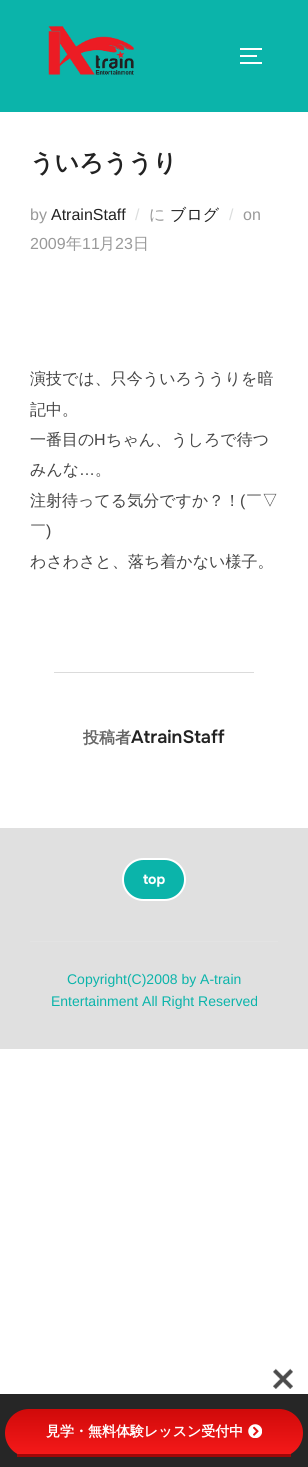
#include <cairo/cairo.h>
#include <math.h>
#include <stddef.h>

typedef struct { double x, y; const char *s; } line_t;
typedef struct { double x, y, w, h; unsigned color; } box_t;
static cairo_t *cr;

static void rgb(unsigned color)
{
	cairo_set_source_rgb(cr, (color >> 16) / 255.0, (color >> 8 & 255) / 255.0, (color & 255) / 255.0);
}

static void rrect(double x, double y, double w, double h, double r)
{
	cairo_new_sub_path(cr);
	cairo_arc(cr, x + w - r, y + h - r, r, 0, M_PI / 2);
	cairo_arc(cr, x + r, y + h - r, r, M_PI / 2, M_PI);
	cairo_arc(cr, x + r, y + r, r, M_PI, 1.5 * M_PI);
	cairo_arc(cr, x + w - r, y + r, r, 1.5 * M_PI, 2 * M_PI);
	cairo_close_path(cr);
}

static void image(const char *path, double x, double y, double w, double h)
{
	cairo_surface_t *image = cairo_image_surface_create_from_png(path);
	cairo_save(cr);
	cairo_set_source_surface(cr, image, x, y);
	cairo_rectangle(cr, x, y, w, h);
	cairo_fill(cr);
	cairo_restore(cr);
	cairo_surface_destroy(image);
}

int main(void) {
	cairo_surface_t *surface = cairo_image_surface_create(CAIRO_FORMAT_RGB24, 308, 1467);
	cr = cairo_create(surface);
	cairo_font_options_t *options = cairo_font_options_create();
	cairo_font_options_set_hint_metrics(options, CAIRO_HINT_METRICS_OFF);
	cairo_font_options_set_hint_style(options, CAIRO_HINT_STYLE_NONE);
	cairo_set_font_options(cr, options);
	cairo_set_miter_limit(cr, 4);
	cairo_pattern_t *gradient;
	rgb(0xffffff);
	cairo_paint(cr);
	rgb(0x0bb4aa);
	cairo_rectangle(cr, 0, 0, 308, 112);
	cairo_fill(cr);
	image("img/1.png", 48, 26, 86, 49);
	{
		static const box_t items[] = {
			{240, 48, 22, 2, 0xffffff},
			{240, 55, 17, 2, 0xffffff},
			{240, 62, 22, 2, 0xffffff},
			{54, 672, 200, 1, 0xdbdbdb},
			{0, 828, 308, 221, 0xe0e0e0},
		};
		for (size_t i = 0; i < sizeof items / sizeof *items; i++) {
			rgb(items[i].color);
			cairo_rectangle(cr, items[i].x, items[i].y, items[i].w, items[i].h);
			cairo_fill(cr);
		}
	}
	rgb(0x0bb4aa);
	rrect(123, 859, 62, 41, 20.5);
	cairo_fill_preserve(cr);
	rgb(0xffffff);
	cairo_stroke(cr);
	rgb(0xe3e3e3);
	cairo_rectangle(cr, 30, 941, 248, 1);
	cairo_fill(cr);
	rgb(0x262626);
	cairo_rectangle(cr, 0, 1394, 308, 73);
	cairo_fill(cr);
	image("img/2.png", 273, 1368, 20, 21);
	cairo_save(cr);
	rrect(5, 1409, 298, 48, 24);
	cairo_clip(cr);
	gradient = cairo_pattern_create_linear(154, 1409, 154, 1454);
	cairo_pattern_add_color_stop_rgba(gradient, 0, 0.816, 0.039, 0.039, 1);
	cairo_pattern_add_color_stop_rgba(gradient, 1, 0.957, 0.098, 0.098, 1);
	cairo_set_source(cr, gradient);
	cairo_pattern_destroy(gradient);
	cairo_new_path(cr);
	cairo_move_to(cr, 29, 1409);
	cairo_line_to(cr, 279, 1409);
	cairo_curve_to(cr, 292.5, 1409, 303, 1419.5, 303, 1433);
	cairo_line_to(cr, 303, 1454);
	cairo_line_to(cr, 5, 1454);
	cairo_line_to(cr, 5, 1433);
	cairo_curve_to(cr, 5, 1419.5, 15.5, 1409, 29, 1409);
	cairo_close_path(cr);
	cairo_fill(cr);
	cairo_restore(cr);
	rgb(0x9f0808);
	cairo_rectangle(cr, 17, 1454, 274, 3);
	cairo_fill(cr);
	image("img/3.png", 248, 1424, 14, 14);
	cairo_select_font_face(cr, "WenQuanYi Zen Hei", CAIRO_FONT_SLANT_NORMAL, CAIRO_FONT_WEIGHT_BOLD);
	cairo_set_font_size(cr, 24);
	rgb(0x222222);
	cairo_move_to(cr, 30, 171);
	cairo_show_text(cr, "ういろううり");
	cairo_select_font_face(cr, "Liberation Sans", CAIRO_FONT_SLANT_NORMAL, CAIRO_FONT_WEIGHT_NORMAL);
	cairo_set_font_size(cr, 16);
	rgb(0x999999);
	cairo_move_to(cr, 30, 220);
	cairo_show_text(cr, "by");
	rgb(0x222222);
	cairo_move_to(cr, 51, 220);
	cairo_show_text(cr, "AtrainStaff");
	rgb(0xdbdddd);
	cairo_move_to(cr, 135, 220);
	cairo_show_text(cr, "/");
	cairo_select_font_face(cr, "WenQuanYi Zen Hei Medium", CAIRO_FONT_SLANT_NORMAL, CAIRO_FONT_WEIGHT_NORMAL);
	rgb(0x999999);
	cairo_move_to(cr, 149, 220);
	cairo_show_text(cr, "に");
	rgb(0x222222);
	cairo_move_to(cr, 170, 220);
	cairo_show_text(cr, "ブログ");
	cairo_select_font_face(cr, "Liberation Sans", CAIRO_FONT_SLANT_NORMAL, CAIRO_FONT_WEIGHT_NORMAL);
	rgb(0xdbdddd);
	cairo_move_to(cr, 229, 220);
	cairo_show_text(cr, "/");
	rgb(0x999999);
	cairo_move_to(cr, 243, 220);
	cairo_show_text(cr, "on");
	cairo_move_to(cr, 30, 249);
	cairo_show_text(cr, "2009");
	cairo_select_font_face(cr, "WenQuanYi Zen Hei Medium", CAIRO_FONT_SLANT_NORMAL, CAIRO_FONT_WEIGHT_NORMAL);
	cairo_move_to(cr, 66, 249);
	cairo_show_text(cr, "年");
	cairo_select_font_face(cr, "Liberation Sans", CAIRO_FONT_SLANT_NORMAL, CAIRO_FONT_WEIGHT_NORMAL);
	cairo_move_to(cr, 82, 249);
	cairo_show_text(cr, "11");
	cairo_select_font_face(cr, "WenQuanYi Zen Hei Medium", CAIRO_FONT_SLANT_NORMAL, CAIRO_FONT_WEIGHT_NORMAL);
	cairo_move_to(cr, 99, 249);
	cairo_show_text(cr, "月");
	cairo_select_font_face(cr, "Liberation Sans", CAIRO_FONT_SLANT_NORMAL, CAIRO_FONT_WEIGHT_NORMAL);
	cairo_move_to(cr, 115, 249);
	cairo_show_text(cr, "23");
	cairo_select_font_face(cr, "WenQuanYi Zen Hei Medium", CAIRO_FONT_SLANT_NORMAL, CAIRO_FONT_WEIGHT_NORMAL);
	cairo_move_to(cr, 133, 249);
	cairo_show_text(cr, "日");
	rgb(0x444444);
	{
		static const line_t items[] = {
			{30, 384, "演技では、只今ういろううりを暗"},
			{30, 415, "記中。"},
			{30, 445, "一番目の"},
		};
		for (size_t i = 0; i < sizeof items / sizeof *items; i++) {
			cairo_move_to(cr, items[i].x, items[i].y);
			cairo_show_text(cr, items[i].s);
		}
	}
	cairo_select_font_face(cr, "Liberation Sans", CAIRO_FONT_SLANT_NORMAL, CAIRO_FONT_WEIGHT_NORMAL);
	cairo_move_to(cr, 94, 445);
	cairo_show_text(cr, "H");
	cairo_select_font_face(cr, "WenQuanYi Zen Hei Medium", CAIRO_FONT_SLANT_NORMAL, CAIRO_FONT_WEIGHT_NORMAL);
	cairo_move_to(cr, 106, 445);
	cairo_show_text(cr, "ちゃん、うしろで待つ");
	cairo_move_to(cr, 30, 475);
	cairo_show_text(cr, "みんな");
	cairo_select_font_face(cr, "Liberation Sans", CAIRO_FONT_SLANT_NORMAL, CAIRO_FONT_WEIGHT_NORMAL);
	cairo_move_to(cr, 79, 475);
	cairo_show_text(cr, "…");
	cairo_select_font_face(cr, "WenQuanYi Zen Hei Medium", CAIRO_FONT_SLANT_NORMAL, CAIRO_FONT_WEIGHT_NORMAL);
	cairo_move_to(cr, 95, 475);
	cairo_show_text(cr, "。");
	cairo_move_to(cr, 30, 506);
	cairo_show_text(cr, "注射待ってる気分ですか？！");
	cairo_select_font_face(cr, "Liberation Sans", CAIRO_FONT_SLANT_NORMAL, CAIRO_FONT_WEIGHT_NORMAL);
	cairo_move_to(cr, 240, 506);
	cairo_show_text(cr, "(");
	cairo_select_font_face(cr, "WenQuanYi Zen Hei Medium", CAIRO_FONT_SLANT_NORMAL, CAIRO_FONT_WEIGHT_NORMAL);
	cairo_move_to(cr, 246, 506);
	cairo_show_text(cr, "￣▽");
	cairo_move_to(cr, 30, 536);
	cairo_show_text(cr, "￣");
	cairo_select_font_face(cr, "Liberation Sans", CAIRO_FONT_SLANT_NORMAL, CAIRO_FONT_WEIGHT_NORMAL);
	cairo_move_to(cr, 46, 536);
	cairo_show_text(cr, ")");
	cairo_select_font_face(cr, "WenQuanYi Zen Hei Medium", CAIRO_FONT_SLANT_NORMAL, CAIRO_FONT_WEIGHT_NORMAL);
	cairo_move_to(cr, 30, 567);
	cairo_show_text(cr, "わさわさと、落ち着かない様子。");
	cairo_select_font_face(cr, "WenQuanYi Zen Hei", CAIRO_FONT_SLANT_NORMAL, CAIRO_FONT_WEIGHT_BOLD);
	rgb(0x666666);
	cairo_move_to(cr, 83, 743);
	cairo_show_text(cr, "投稿者");
	cairo_select_font_face(cr, "Onest SemiBold", CAIRO_FONT_SLANT_NORMAL, CAIRO_FONT_WEIGHT_NORMAL);
	cairo_set_font_size(cr, 18);
	rgb(0x222222);
	cairo_move_to(cr, 131, 743);
	cairo_show_text(cr, "AtrainStaff");
	cairo_select_font_face(cr, "Onest", CAIRO_FONT_SLANT_NORMAL, CAIRO_FONT_WEIGHT_BOLD);
	cairo_set_font_size(cr, 14);
	rgb(0xffffff);
	cairo_move_to(cr, 143, 884);
	cairo_show_text(cr, "top");
	cairo_select_font_face(cr, "Liberation Sans", CAIRO_FONT_SLANT_NORMAL, CAIRO_FONT_WEIGHT_NORMAL);
	rgb(0x0bb4aa);
	cairo_move_to(cr, 67, 984);
	cairo_show_text(cr, "Copyright(C)2008 by A-train");
	cairo_move_to(cr, 51, 1006);
	cairo_show_text(cr, "Entertainment All Right Reserved");
	cairo_select_font_face(cr, "WenQuanYi Zen Hei", CAIRO_FONT_SLANT_NORMAL, CAIRO_FONT_WEIGHT_BOLD);
	rgb(0xffffff);
	cairo_move_to(cr, 46, 1436);
	cairo_show_text(cr, "見学・無料体験レッスン受付中");
	cairo_surface_write_to_png(surface, "page.png");
	cairo_font_options_destroy(options);
	cairo_destroy(cr);
	cairo_surface_destroy(surface);
	return 0;
}
